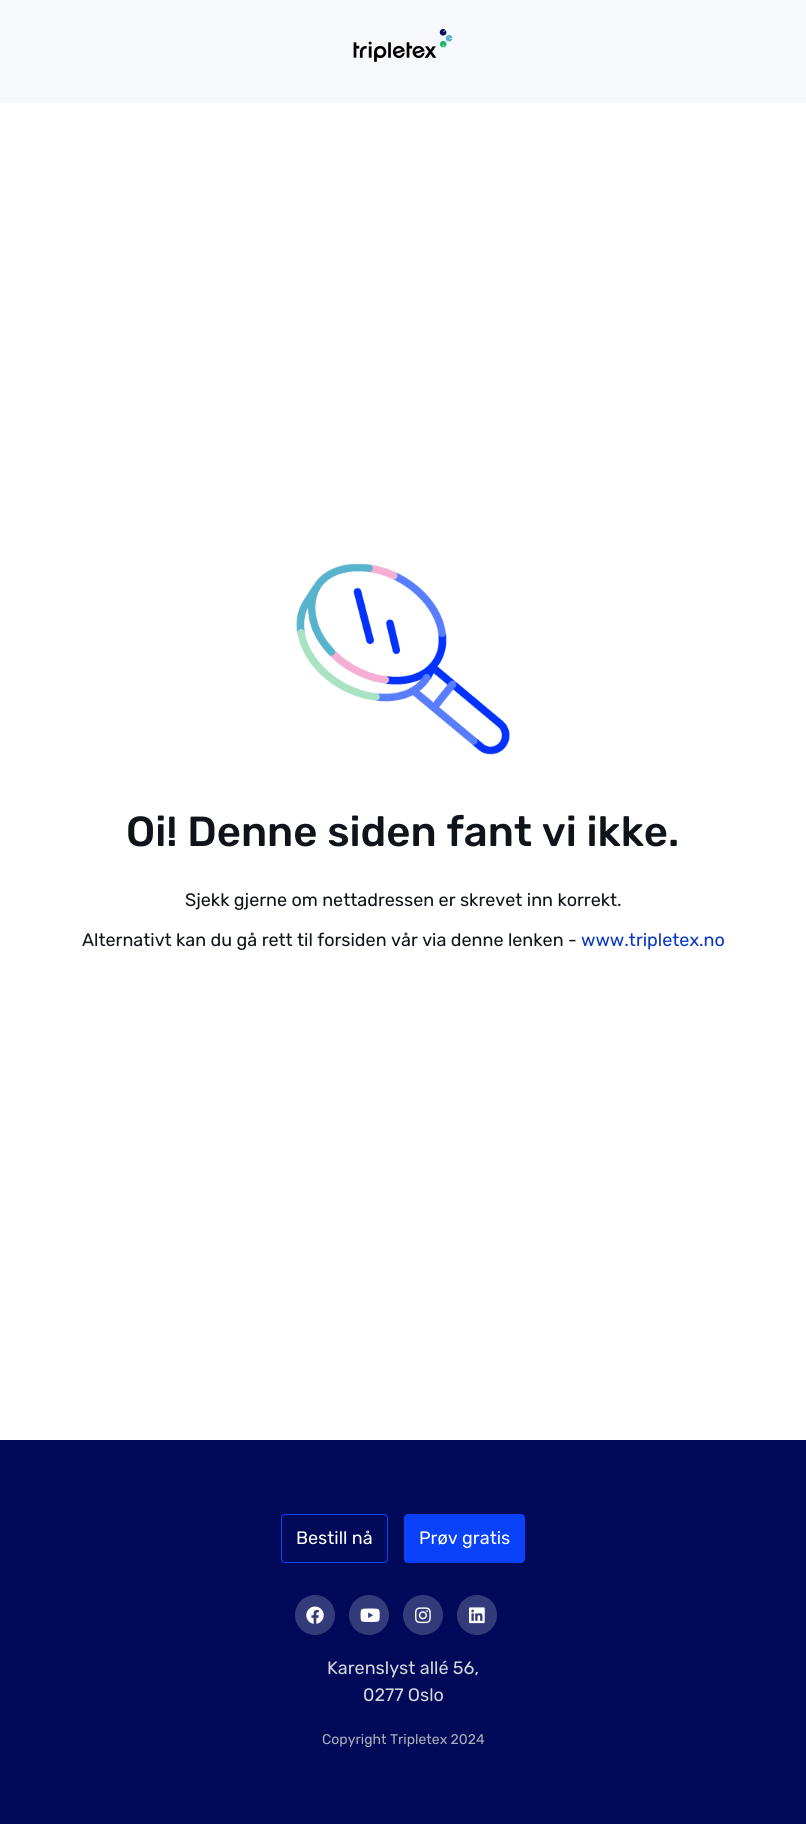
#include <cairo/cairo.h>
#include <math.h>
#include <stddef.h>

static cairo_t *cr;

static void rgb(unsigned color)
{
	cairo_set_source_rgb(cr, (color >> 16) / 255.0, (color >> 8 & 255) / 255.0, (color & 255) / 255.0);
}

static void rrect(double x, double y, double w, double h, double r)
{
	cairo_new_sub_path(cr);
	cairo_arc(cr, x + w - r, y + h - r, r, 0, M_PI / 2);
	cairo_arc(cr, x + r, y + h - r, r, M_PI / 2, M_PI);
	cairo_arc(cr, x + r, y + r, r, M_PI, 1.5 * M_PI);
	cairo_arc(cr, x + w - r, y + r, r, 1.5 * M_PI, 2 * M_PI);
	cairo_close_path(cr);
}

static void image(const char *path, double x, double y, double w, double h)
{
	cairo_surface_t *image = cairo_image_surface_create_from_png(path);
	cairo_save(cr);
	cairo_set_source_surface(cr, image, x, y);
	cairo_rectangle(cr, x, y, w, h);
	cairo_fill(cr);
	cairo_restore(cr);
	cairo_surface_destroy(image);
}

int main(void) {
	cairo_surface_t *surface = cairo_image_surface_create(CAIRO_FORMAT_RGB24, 806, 1824);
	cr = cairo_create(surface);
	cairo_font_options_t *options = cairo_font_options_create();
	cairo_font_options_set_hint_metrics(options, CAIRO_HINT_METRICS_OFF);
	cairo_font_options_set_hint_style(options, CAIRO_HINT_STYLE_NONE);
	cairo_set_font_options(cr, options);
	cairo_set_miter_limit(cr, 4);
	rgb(0xffffff);
	cairo_paint(cr);
	rgb(0xf7f8fc);
	cairo_rectangle(cr, 0, 0, 806, 103);
	cairo_fill(cr);
	image("img/1.png", 353, 29, 100, 33);
	image("img/2.png", 296, 563, 214, 192);
	rgb(0x010a59);
	cairo_rectangle(cr, 0, 1440, 806, 384);
	cairo_fill(cr);
	rrect(281.5, 1514.5, 106, 48, 3.5);
	rgb(0x0a41fa);
	cairo_set_line_width(cr, 1);
	cairo_stroke(cr);
	rrect(404.5, 1514.5, 120, 48, 3.5);
	cairo_fill_preserve(cr);
	cairo_stroke(cr);
	rgb(0x343b7a);
	cairo_arc(cr, 315, 1615, 20, 0, 2 * M_PI);
	cairo_fill(cr);
	image("img/3.png", 306, 1606, 18, 18);
	cairo_arc(cr, 369, 1615, 20, 0, 2 * M_PI);
	cairo_fill(cr);
	image("img/4.png", 360, 1608, 20, 14);
	cairo_arc(cr, 423, 1615, 20, 0, 2 * M_PI);
	cairo_fill(cr);
	image("img/5.png", 415, 1607, 16, 17);
	cairo_arc(cr, 477, 1615, 20, 0, 2 * M_PI);
	cairo_fill(cr);
	image("img/6.png", 469, 1607, 16, 17);
	cairo_select_font_face(cr, "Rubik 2 Light", CAIRO_FONT_SLANT_NORMAL, CAIRO_FONT_WEIGHT_NORMAL);
	cairo_set_font_size(cr, 42);
	rgb(0x0f131a);
	cairo_move_to(cr, 126, 846);
	cairo_show_text(cr, "Oi! Denne siden fant vi ikke.");
	cairo_select_font_face(cr, "Rubik Light", CAIRO_FONT_SLANT_NORMAL, CAIRO_FONT_WEIGHT_NORMAL);
	cairo_set_font_size(cr, 18);
	cairo_move_to(cr, 185, 906);
	cairo_show_text(cr, "Sjekk gjerne om nettadressen er skrevet inn korrekt.");
	cairo_move_to(cr, 82, 946);
	cairo_show_text(cr, "Alternativt kan du gå rett til forsiden vår via denne lenken -");
	rgb(0x0834c7);
	cairo_move_to(cr, 581, 946);
	cairo_show_text(cr, "www.tripletex.no");
	rgb(0xffffff);
	cairo_move_to(cr, 296, 1544);
	cairo_show_text(cr, "Bestill nå");
	cairo_move_to(cr, 419, 1544);
	cairo_show_text(cr, "Prøv gratis");
	rgb(0xd5d7db);
	cairo_move_to(cr, 327, 1674);
	cairo_show_text(cr, "Karenslyst allé 56,");
	cairo_move_to(cr, 363, 1701);
	cairo_show_text(cr, "0277 Oslo");
	cairo_set_font_size(cr, 14);
	rgb(0xabafb7);
	cairo_move_to(cr, 322, 1744);
	cairo_show_text(cr, "Copyright Tripletex 2024");
	cairo_surface_write_to_png(surface, "page.png");
	cairo_font_options_destroy(options);
	cairo_destroy(cr);
	cairo_surface_destroy(surface);
	return 0;
}
